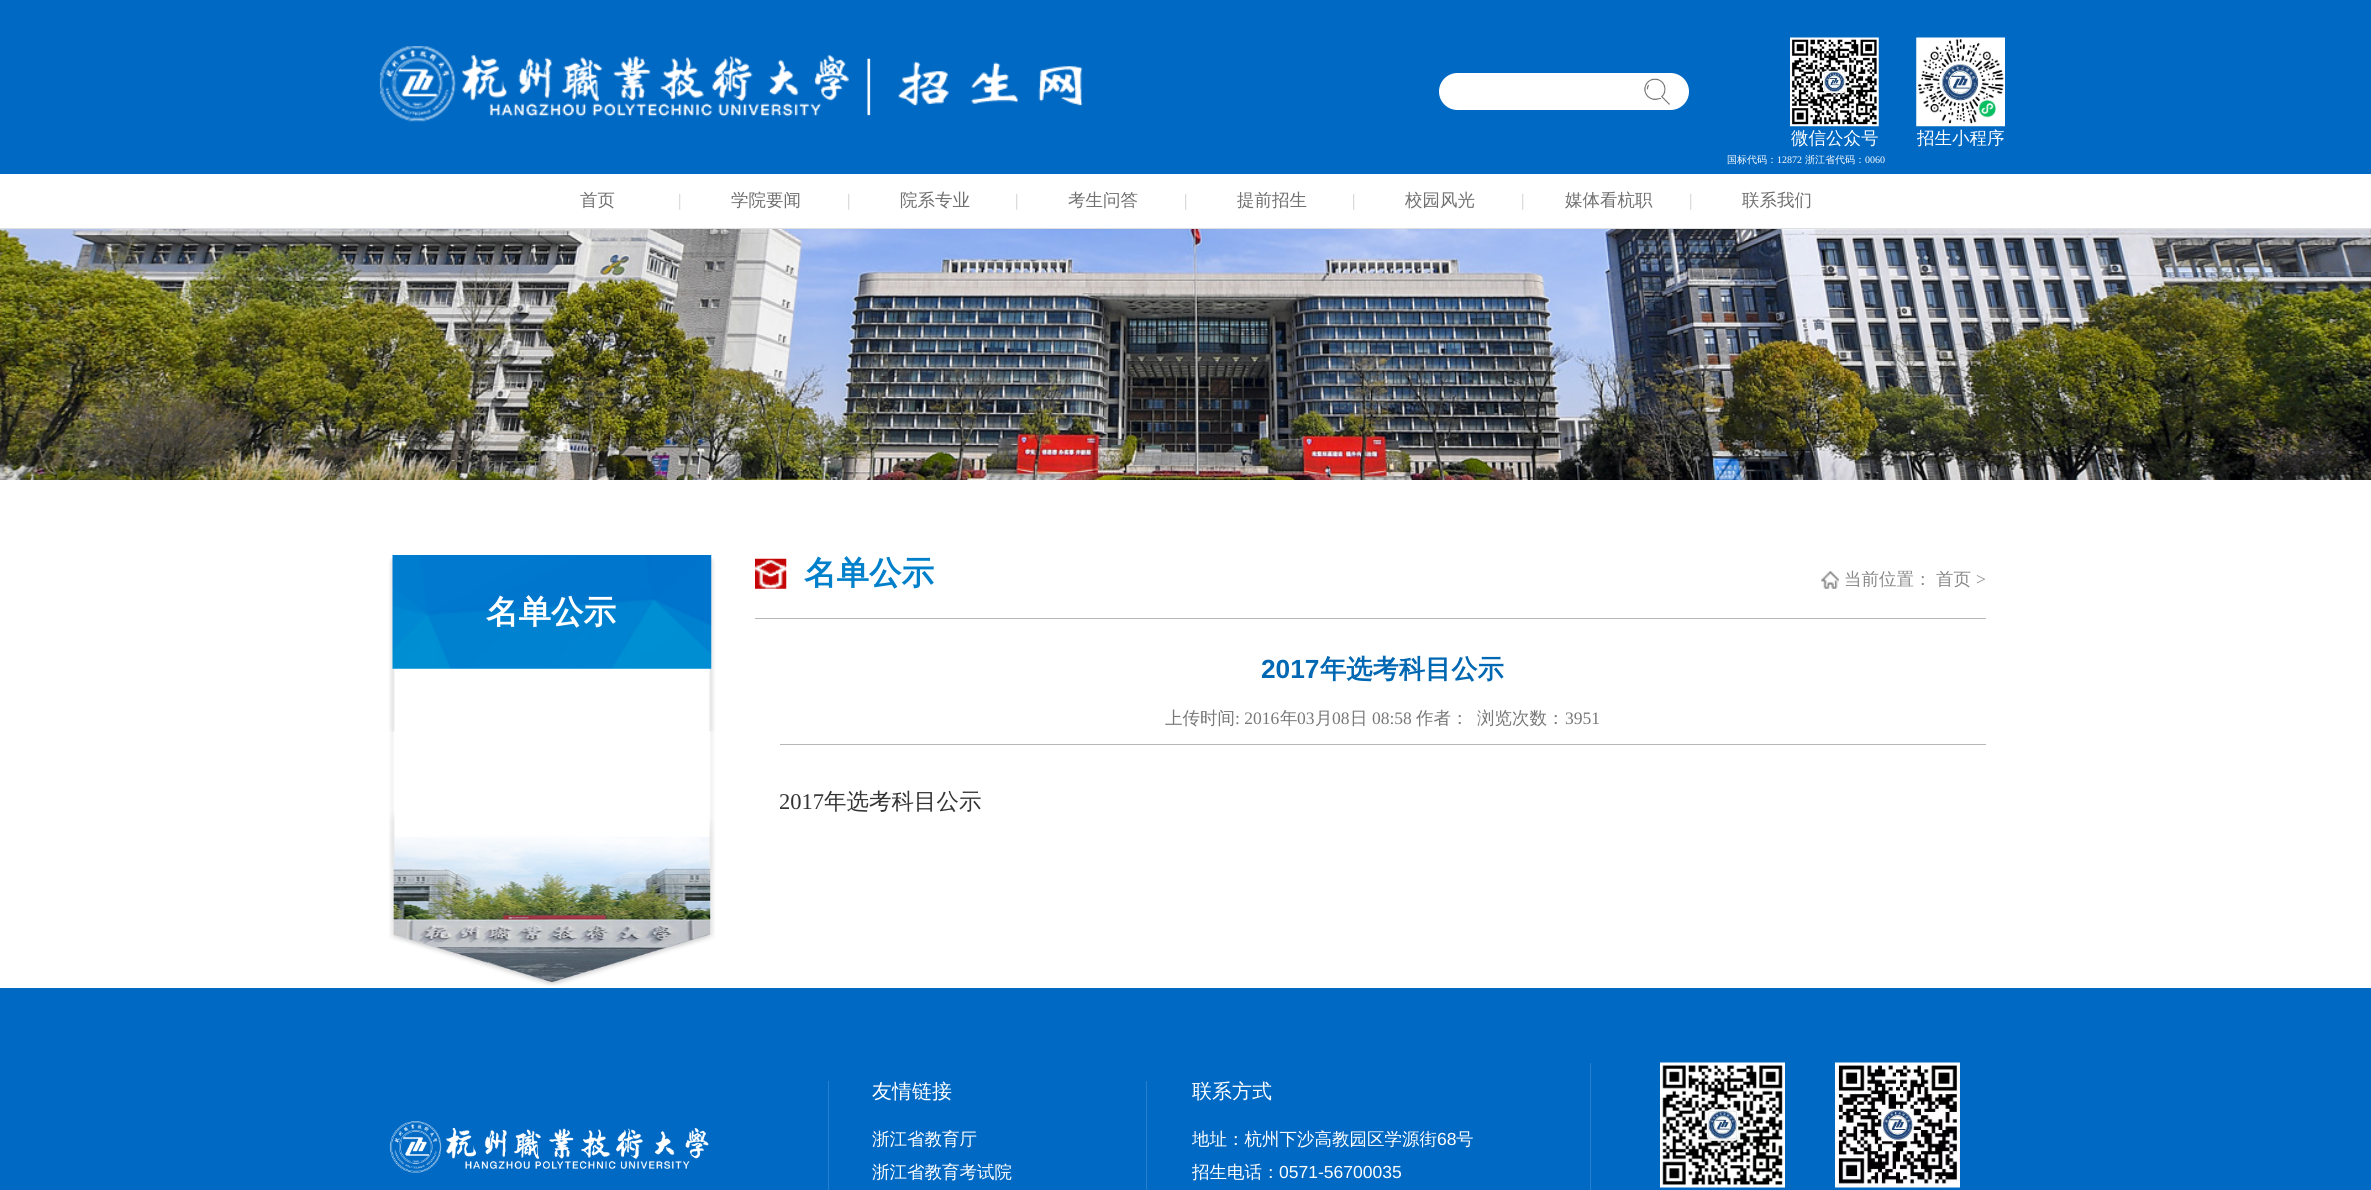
#include <cairo/cairo.h>
#include <math.h>
#include <stddef.h>

typedef struct { double x, y, w, h; unsigned color; } box_t;
static cairo_t *cr;

static void rgb(unsigned color)
{
	cairo_set_source_rgb(cr, (color >> 16) / 255.0, (color >> 8 & 255) / 255.0, (color & 255) / 255.0);
}

static void rrect(double x, double y, double w, double h, double r)
{
	cairo_new_sub_path(cr);
	cairo_arc(cr, x + w - r, y + h - r, r, 0, M_PI / 2);
	cairo_arc(cr, x + r, y + h - r, r, M_PI / 2, M_PI);
	cairo_arc(cr, x + r, y + r, r, M_PI, 1.5 * M_PI);
	cairo_arc(cr, x + w - r, y + r, r, 1.5 * M_PI, 2 * M_PI);
	cairo_close_path(cr);
}

static void image(const char *path, double x, double y, double w, double h)
{
	cairo_surface_t *image = cairo_image_surface_create_from_png(path);
	cairo_save(cr);
	cairo_set_source_surface(cr, image, x, y);
	cairo_rectangle(cr, x, y, w, h);
	cairo_fill(cr);
	cairo_restore(cr);
	cairo_surface_destroy(image);
}

int main(void) {
	cairo_surface_t *surface = cairo_image_surface_create(CAIRO_FORMAT_RGB24, 2371, 1190);
	cr = cairo_create(surface);
	cairo_font_options_t *options = cairo_font_options_create();
	cairo_font_options_set_hint_metrics(options, CAIRO_HINT_METRICS_OFF);
	cairo_font_options_set_hint_style(options, CAIRO_HINT_STYLE_NONE);
	cairo_set_font_options(cr, options);
	cairo_set_miter_limit(cr, 4);
	rgb(0xffffff);
	cairo_paint(cr);
	rgb(0x0069c4);
	cairo_rectangle(cr, 0, 0, 2371, 174);
	cairo_fill(cr);
	image("img/1.png", 379, 46, 704, 76);
	rgb(0xffffff);
	rrect(1439, 73, 250, 37, 18.5);
	cairo_fill(cr);
	image("img/2.png", 1644, 78, 26, 27);
	image("img/3.png", 1790, 37, 89, 90);
	image("img/4.png", 1916, 37, 89, 90);
	rgb(0xe0e0e0);
	cairo_rectangle(cr, 0, 228, 2371, 1);
	cairo_fill(cr);
	image("img/5.png", 0, 229, 2371, 251);
	image("img/6.png", 389, 558, 326, 428);
	image("img/7.png", 392, 555, 320, 114);
	rgb(0xb4b6b8);
	cairo_rectangle(cr, 755, 618, 1231, 1);
	cairo_fill(cr);
	image("img/8.png", 755, 558, 32, 31);
	image("img/9.png", 1821, 571, 18, 18);
	cairo_rectangle(cr, 780, 744, 1206, 1);
	cairo_fill(cr);
	rgb(0x0069c4);
	cairo_rectangle(cr, 0, 988, 2371, 202);
	cairo_fill(cr);
	image("img/10.png", 389, 1121, 320, 52);
	{
		static const box_t items[] = {
			{828, 1081, 1, 109, 0x2680cd},
			{1146, 1081, 1, 109, 0x2680cd},
			{1590, 1063, 1, 127, 0x2680cd},
		};
		for (size_t i = 0; i < sizeof items / sizeof *items; i++) {
			rgb(items[i].color);
			cairo_rectangle(cr, items[i].x, items[i].y, items[i].w, items[i].h);
			cairo_fill(cr);
		}
	}
	image("img/11.png", 1660, 1062, 125, 126);
	image("img/12.png", 1835, 1062, 125, 126);
	cairo_select_font_face(cr, "WenQuanYi Zen Hei Medium", CAIRO_FONT_SLANT_NORMAL, CAIRO_FONT_WEIGHT_NORMAL);
	cairo_set_font_size(cr, 17.5);
	rgb(0xffffff);
	cairo_move_to(cr, 1791, 144);
	cairo_show_text(cr, "微信公众号");
	cairo_move_to(cr, 1917, 144);
	cairo_show_text(cr, "招生小程序");
	cairo_set_font_size(cr, 10);
	cairo_move_to(cr, 1727, 163);
	cairo_show_text(cr, "国标代码：");
	cairo_select_font_face(cr, "Liberation Serif", CAIRO_FONT_SLANT_NORMAL, CAIRO_FONT_WEIGHT_NORMAL);
	cairo_move_to(cr, 1777, 163);
	cairo_show_text(cr, "12872");
	cairo_select_font_face(cr, "WenQuanYi Zen Hei Medium", CAIRO_FONT_SLANT_NORMAL, CAIRO_FONT_WEIGHT_NORMAL);
	cairo_move_to(cr, 1805, 163);
	cairo_show_text(cr, "浙江省代码：");
	cairo_select_font_face(cr, "Liberation Serif", CAIRO_FONT_SLANT_NORMAL, CAIRO_FONT_WEIGHT_NORMAL);
	cairo_move_to(cr, 1865, 163);
	cairo_show_text(cr, "0060");
	cairo_select_font_face(cr, "WenQuanYi Zen Hei Medium", CAIRO_FONT_SLANT_NORMAL, CAIRO_FONT_WEIGHT_NORMAL);
	cairo_set_font_size(cr, 17.5);
	rgb(0x6f6f6f);
	cairo_move_to(cr, 580, 206);
	cairo_show_text(cr, "首页");
	cairo_select_font_face(cr, "Liberation Serif", CAIRO_FONT_SLANT_NORMAL, CAIRO_FONT_WEIGHT_NORMAL);
	rgb(0xcccccc);
	cairo_move_to(cr, 678, 206);
	cairo_show_text(cr, "|");
	cairo_select_font_face(cr, "WenQuanYi Zen Hei Medium", CAIRO_FONT_SLANT_NORMAL, CAIRO_FONT_WEIGHT_NORMAL);
	rgb(0x6f6f6f);
	cairo_move_to(cr, 731, 206);
	cairo_show_text(cr, "学院要闻");
	cairo_select_font_face(cr, "Liberation Serif", CAIRO_FONT_SLANT_NORMAL, CAIRO_FONT_WEIGHT_NORMAL);
	rgb(0xcccccc);
	cairo_move_to(cr, 847, 206);
	cairo_show_text(cr, "|");
	cairo_select_font_face(cr, "WenQuanYi Zen Hei Medium", CAIRO_FONT_SLANT_NORMAL, CAIRO_FONT_WEIGHT_NORMAL);
	rgb(0x6f6f6f);
	cairo_move_to(cr, 900, 206);
	cairo_show_text(cr, "院系专业");
	cairo_select_font_face(cr, "Liberation Serif", CAIRO_FONT_SLANT_NORMAL, CAIRO_FONT_WEIGHT_NORMAL);
	rgb(0xcccccc);
	cairo_move_to(cr, 1015, 206);
	cairo_show_text(cr, "|");
	cairo_select_font_face(cr, "WenQuanYi Zen Hei Medium", CAIRO_FONT_SLANT_NORMAL, CAIRO_FONT_WEIGHT_NORMAL);
	rgb(0x6f6f6f);
	cairo_move_to(cr, 1068, 206);
	cairo_show_text(cr, "考生问答");
	cairo_select_font_face(cr, "Liberation Serif", CAIRO_FONT_SLANT_NORMAL, CAIRO_FONT_WEIGHT_NORMAL);
	rgb(0xcccccc);
	cairo_move_to(cr, 1184, 206);
	cairo_show_text(cr, "|");
	cairo_select_font_face(cr, "WenQuanYi Zen Hei Medium", CAIRO_FONT_SLANT_NORMAL, CAIRO_FONT_WEIGHT_NORMAL);
	rgb(0x6f6f6f);
	cairo_move_to(cr, 1237, 206);
	cairo_show_text(cr, "提前招生");
	cairo_select_font_face(cr, "Liberation Serif", CAIRO_FONT_SLANT_NORMAL, CAIRO_FONT_WEIGHT_NORMAL);
	rgb(0xcccccc);
	cairo_move_to(cr, 1352, 206);
	cairo_show_text(cr, "|");
	cairo_select_font_face(cr, "WenQuanYi Zen Hei Medium", CAIRO_FONT_SLANT_NORMAL, CAIRO_FONT_WEIGHT_NORMAL);
	rgb(0x6f6f6f);
	cairo_move_to(cr, 1405, 206);
	cairo_show_text(cr, "校园风光");
	cairo_select_font_face(cr, "Liberation Serif", CAIRO_FONT_SLANT_NORMAL, CAIRO_FONT_WEIGHT_NORMAL);
	rgb(0xcccccc);
	cairo_move_to(cr, 1521, 206);
	cairo_show_text(cr, "|");
	cairo_select_font_face(cr, "WenQuanYi Zen Hei Medium", CAIRO_FONT_SLANT_NORMAL, CAIRO_FONT_WEIGHT_NORMAL);
	rgb(0x6f6f6f);
	cairo_move_to(cr, 1565, 206);
	cairo_show_text(cr, "媒体看杭职");
	cairo_select_font_face(cr, "Liberation Serif", CAIRO_FONT_SLANT_NORMAL, CAIRO_FONT_WEIGHT_NORMAL);
	rgb(0xcccccc);
	cairo_move_to(cr, 1689, 206);
	cairo_show_text(cr, "|");
	cairo_select_font_face(cr, "WenQuanYi Zen Hei Medium", CAIRO_FONT_SLANT_NORMAL, CAIRO_FONT_WEIGHT_NORMAL);
	rgb(0x6f6f6f);
	cairo_move_to(cr, 1742, 206);
	cairo_show_text(cr, "联系我们");
	cairo_select_font_face(cr, "WenQuanYi Zen Hei", CAIRO_FONT_SLANT_NORMAL, CAIRO_FONT_WEIGHT_BOLD);
	cairo_set_font_size(cr, 32.5);
	rgb(0xffffff);
	cairo_move_to(cr, 486, 623);
	cairo_show_text(cr, "名单公示");
	rgb(0x0080ca);
	cairo_move_to(cr, 804, 584);
	cairo_show_text(cr, "名单公示");
	cairo_select_font_face(cr, "WenQuanYi Zen Hei Medium", CAIRO_FONT_SLANT_NORMAL, CAIRO_FONT_WEIGHT_NORMAL);
	cairo_set_font_size(cr, 17.5);
	rgb(0x888888);
	cairo_move_to(cr, 1844, 585);
	cairo_show_text(cr, "当前位置：");
	cairo_move_to(cr, 1936, 585);
	cairo_show_text(cr, "首页");
	cairo_select_font_face(cr, "Liberation Serif", CAIRO_FONT_SLANT_NORMAL, CAIRO_FONT_WEIGHT_NORMAL);
	cairo_move_to(cr, 1976, 585);
	cairo_show_text(cr, ">");
	cairo_select_font_face(cr, "Liberation Sans", CAIRO_FONT_SLANT_NORMAL, CAIRO_FONT_WEIGHT_BOLD);
	cairo_set_font_size(cr, 26.25);
	rgb(0x0067b2);
	cairo_move_to(cr, 1261, 678);
	cairo_show_text(cr, "2017");
	cairo_select_font_face(cr, "WenQuanYi Zen Hei", CAIRO_FONT_SLANT_NORMAL, CAIRO_FONT_WEIGHT_BOLD);
	cairo_move_to(cr, 1320, 678);
	cairo_show_text(cr, "年选考科目公示");
	cairo_select_font_face(cr, "WenQuanYi Zen Hei Medium", CAIRO_FONT_SLANT_NORMAL, CAIRO_FONT_WEIGHT_NORMAL);
	cairo_set_font_size(cr, 17.5);
	rgb(0x777777);
	cairo_move_to(cr, 1165, 724);
	cairo_show_text(cr, "上传时间");
	cairo_select_font_face(cr, "Liberation Serif", CAIRO_FONT_SLANT_NORMAL, CAIRO_FONT_WEIGHT_NORMAL);
	cairo_move_to(cr, 1235, 724);
	cairo_show_text(cr, ": 2016");
	cairo_select_font_face(cr, "WenQuanYi Zen Hei Medium", CAIRO_FONT_SLANT_NORMAL, CAIRO_FONT_WEIGHT_NORMAL);
	cairo_move_to(cr, 1280, 724);
	cairo_show_text(cr, "年");
	cairo_select_font_face(cr, "Liberation Serif", CAIRO_FONT_SLANT_NORMAL, CAIRO_FONT_WEIGHT_NORMAL);
	cairo_move_to(cr, 1297, 724);
	cairo_show_text(cr, "03");
	cairo_select_font_face(cr, "WenQuanYi Zen Hei Medium", CAIRO_FONT_SLANT_NORMAL, CAIRO_FONT_WEIGHT_NORMAL);
	cairo_move_to(cr, 1315, 724);
	cairo_show_text(cr, "月");
	cairo_select_font_face(cr, "Liberation Serif", CAIRO_FONT_SLANT_NORMAL, CAIRO_FONT_WEIGHT_NORMAL);
	cairo_move_to(cr, 1332, 724);
	cairo_show_text(cr, "08");
	cairo_select_font_face(cr, "WenQuanYi Zen Hei Medium", CAIRO_FONT_SLANT_NORMAL, CAIRO_FONT_WEIGHT_NORMAL);
	cairo_move_to(cr, 1350, 724);
	cairo_show_text(cr, "日");
	cairo_select_font_face(cr, "Liberation Serif", CAIRO_FONT_SLANT_NORMAL, CAIRO_FONT_WEIGHT_NORMAL);
	cairo_move_to(cr, 1372, 724);
	cairo_show_text(cr, "08:58");
	cairo_select_font_face(cr, "WenQuanYi Zen Hei Medium", CAIRO_FONT_SLANT_NORMAL, CAIRO_FONT_WEIGHT_NORMAL);
	cairo_move_to(cr, 1416, 724);
	cairo_show_text(cr, "作者：");
	cairo_move_to(cr, 1477, 724);
	cairo_show_text(cr, "浏览次数：");
	cairo_select_font_face(cr, "Liberation Serif", CAIRO_FONT_SLANT_NORMAL, CAIRO_FONT_WEIGHT_NORMAL);
	cairo_move_to(cr, 1565, 724);
	cairo_show_text(cr, "3951");
	cairo_set_font_size(cr, 22.5);
	rgb(0x333333);
	cairo_move_to(cr, 779, 809);
	cairo_show_text(cr, "2017");
	cairo_select_font_face(cr, "WenQuanYi Zen Hei Medium", CAIRO_FONT_SLANT_NORMAL, CAIRO_FONT_WEIGHT_NORMAL);
	cairo_move_to(cr, 824, 809);
	cairo_show_text(cr, "年选考科目公示");
	cairo_set_font_size(cr, 20);
	rgb(0xffffff);
	cairo_move_to(cr, 872, 1098);
	cairo_show_text(cr, "友情链接");
	cairo_set_font_size(cr, 17.5);
	cairo_move_to(cr, 872, 1145);
	cairo_show_text(cr, "浙江省教育厅");
	cairo_move_to(cr, 872, 1178);
	cairo_show_text(cr, "浙江省教育考试院");
	cairo_set_font_size(cr, 20);
	cairo_move_to(cr, 1192, 1098);
	cairo_show_text(cr, "联系方式");
	cairo_set_font_size(cr, 17.5);
	cairo_move_to(cr, 1192, 1145);
	cairo_show_text(cr, "地址：杭州下沙高教园区学源街");
	cairo_select_font_face(cr, "Liberation Sans", CAIRO_FONT_SLANT_NORMAL, CAIRO_FONT_WEIGHT_NORMAL);
	cairo_move_to(cr, 1437, 1145);
	cairo_show_text(cr, "68");
	cairo_select_font_face(cr, "WenQuanYi Zen Hei Medium", CAIRO_FONT_SLANT_NORMAL, CAIRO_FONT_WEIGHT_NORMAL);
	cairo_move_to(cr, 1456, 1145);
	cairo_show_text(cr, "号");
	cairo_move_to(cr, 1192, 1178);
	cairo_show_text(cr, "招生电话：");
	cairo_select_font_face(cr, "Liberation Sans", CAIRO_FONT_SLANT_NORMAL, CAIRO_FONT_WEIGHT_NORMAL);
	cairo_move_to(cr, 1279, 1178);
	cairo_show_text(cr, "0571-56700035");
	cairo_surface_write_to_png(surface, "page.png");
	cairo_font_options_destroy(options);
	cairo_destroy(cr);
	cairo_surface_destroy(surface);
	return 0;
}
